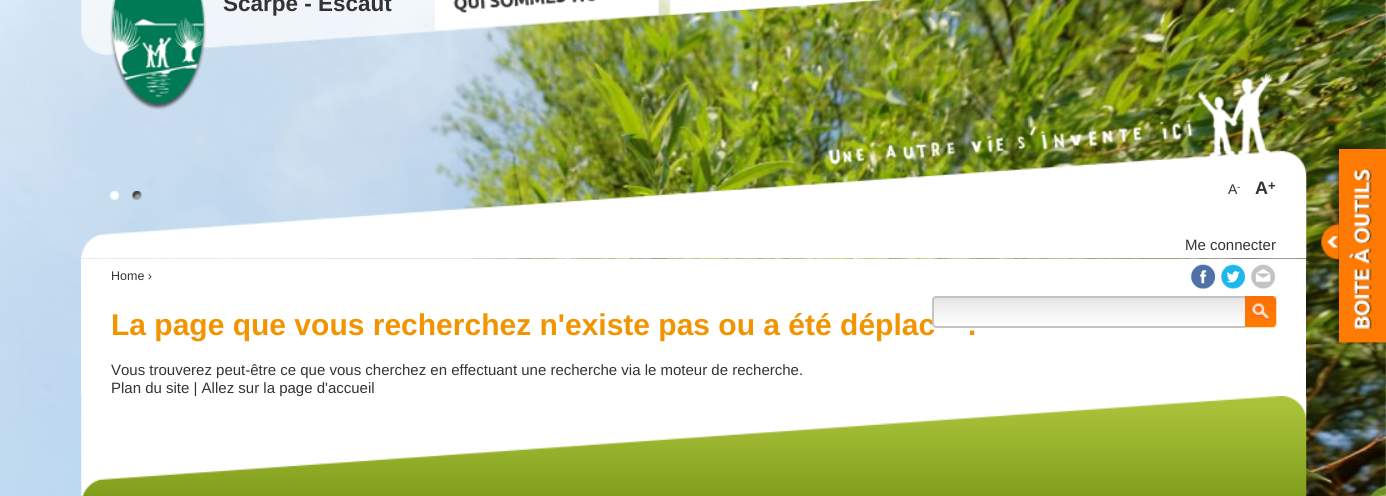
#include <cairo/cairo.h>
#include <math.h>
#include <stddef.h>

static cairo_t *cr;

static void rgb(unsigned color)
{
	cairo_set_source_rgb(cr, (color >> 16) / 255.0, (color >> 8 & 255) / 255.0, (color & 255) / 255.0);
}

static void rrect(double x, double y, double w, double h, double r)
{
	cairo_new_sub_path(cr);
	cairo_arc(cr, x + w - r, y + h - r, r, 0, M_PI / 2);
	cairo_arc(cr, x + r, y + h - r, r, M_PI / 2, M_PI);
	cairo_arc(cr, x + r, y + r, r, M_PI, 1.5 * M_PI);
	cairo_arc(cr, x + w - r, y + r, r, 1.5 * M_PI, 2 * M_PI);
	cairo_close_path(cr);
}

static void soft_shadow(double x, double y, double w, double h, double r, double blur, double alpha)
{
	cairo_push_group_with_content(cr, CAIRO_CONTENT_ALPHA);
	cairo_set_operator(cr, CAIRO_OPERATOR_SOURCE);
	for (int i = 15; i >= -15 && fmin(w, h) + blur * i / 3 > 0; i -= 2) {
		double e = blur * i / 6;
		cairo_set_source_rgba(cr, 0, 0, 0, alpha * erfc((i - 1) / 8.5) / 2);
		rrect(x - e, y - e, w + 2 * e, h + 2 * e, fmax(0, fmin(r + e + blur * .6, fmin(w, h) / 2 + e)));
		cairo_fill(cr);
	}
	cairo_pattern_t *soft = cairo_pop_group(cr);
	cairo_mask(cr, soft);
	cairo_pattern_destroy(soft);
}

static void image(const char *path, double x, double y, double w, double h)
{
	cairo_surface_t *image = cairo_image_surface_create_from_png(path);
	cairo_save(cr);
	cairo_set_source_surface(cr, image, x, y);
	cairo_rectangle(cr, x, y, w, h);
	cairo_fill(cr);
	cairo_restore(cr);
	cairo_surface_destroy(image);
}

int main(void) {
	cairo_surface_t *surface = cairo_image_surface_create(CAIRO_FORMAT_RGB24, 1386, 496);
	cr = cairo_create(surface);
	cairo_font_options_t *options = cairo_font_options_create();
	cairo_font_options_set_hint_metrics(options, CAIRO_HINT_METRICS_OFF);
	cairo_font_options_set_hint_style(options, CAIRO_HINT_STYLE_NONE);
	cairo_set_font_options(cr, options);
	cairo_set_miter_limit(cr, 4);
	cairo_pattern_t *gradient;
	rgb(0xffffff);
	cairo_paint(cr);
	image("img/2.png", 1385, 0, 1, 496);
	image("img/1.png", 0, 0, 1386, 496);
	image("img/5.png", 81, 0, 801, 55);
	image("img/6.png", 110, 0, 96, 110);
	image("img/8.png", 81, 73, 1226, 186);
	image("img/3.png", 110, 191, 9, 9);
	image("img/4.png", 132, 191, 10, 9);
	image("img/7.png", 435, 0, 447, 30);
	rgb(0xffffff);
	cairo_rectangle(cr, 81, 259, 1225, 137);
	cairo_fill(cr);
	image("img/9.png", 1191, 264, 24, 25);
	image("img/10.png", 1221, 264, 24, 25);
	image("img/11.png", 1251, 264, 24, 25);
	gradient = cairo_pattern_create_linear(1089, 297, 1089, 326);
	cairo_pattern_add_color_stop_rgba(gradient, 0, 0.898, 0.898, 0.898, 1);
	cairo_pattern_add_color_stop_rgba(gradient, 1, 1, 1, 1, 1);
	cairo_set_source(cr, gradient);
	cairo_pattern_destroy(gradient);
	cairo_rectangle(cr, 934, 298, 311, 25);
	cairo_fill(cr);
	image("img/12.png", 1245, 296, 32, 32);
	rgb(0x000000);
	soft_shadow(1339, 149, 47, 185, 0, 6, 0.8);
	rgb(0xff7b01);
	cairo_rectangle(cr, 1339, 149, 47, 6);
	cairo_fill(cr);
	image("img/14.png", 1338, 155, 48, 188);
	image("img/13.png", 1314, 220, 25, 43);
	image("img/15.png", 81, 396, 1226, 100);
	cairo_select_font_face(cr, "Liberation Sans", CAIRO_FONT_SLANT_NORMAL, CAIRO_FONT_WEIGHT_BOLD);
	cairo_set_font_size(cr, 22.5);
	rgb(0x333333);
	cairo_move_to(cr, 223, 11);
	cairo_show_text(cr, "Scarpe - Escaut");
	cairo_select_font_face(cr, "Liberation Sans", CAIRO_FONT_SLANT_NORMAL, CAIRO_FONT_WEIGHT_NORMAL);
	cairo_set_font_size(cr, 14);
	cairo_move_to(cr, 1228, 194);
	cairo_show_text(cr, "A");
	cairo_set_font_size(cr, 10);
	cairo_move_to(cr, 1237, 190);
	cairo_show_text(cr, "-");
	cairo_select_font_face(cr, "Liberation Sans", CAIRO_FONT_SLANT_NORMAL, CAIRO_FONT_WEIGHT_BOLD);
	cairo_set_font_size(cr, 18);
	cairo_move_to(cr, 1255, 194);
	cairo_show_text(cr, "A");
	cairo_set_font_size(cr, 13);
	cairo_move_to(cr, 1268, 190);
	cairo_show_text(cr, "+");
	cairo_select_font_face(cr, "Liberation Sans", CAIRO_FONT_SLANT_NORMAL, CAIRO_FONT_WEIGHT_NORMAL);
	cairo_set_font_size(cr, 15);
	cairo_move_to(cr, 1185, 250);
	cairo_show_text(cr, "Me connecter");
	cairo_set_font_size(cr, 12.5);
	cairo_move_to(cr, 111, 280);
	cairo_show_text(cr, "Home ›");
	cairo_select_font_face(cr, "Liberation Sans", CAIRO_FONT_SLANT_NORMAL, CAIRO_FONT_WEIGHT_BOLD);
	cairo_set_font_size(cr, 30);
	rgb(0xf29400);
	cairo_move_to(cr, 111, 335);
	cairo_show_text(cr, "La page que vous recherchez n'existe pas ou a été déplac");
	rgb(0xc4c4c4);
	cairo_set_fill_rule(cr, CAIRO_FILL_RULE_EVEN_ODD);
	cairo_new_path(cr);
	cairo_move_to(cr, 936, 296);
	cairo_line_to(cr, 1245, 296);
	cairo_line_to(cr, 1245, 328);
	cairo_line_to(cr, 936, 328);
	cairo_curve_to(cr, 934, 328, 932, 326, 932, 324);
	cairo_line_to(cr, 932, 300);
	cairo_curve_to(cr, 932, 298, 934, 296, 936, 296);
	cairo_close_path(cr);
	cairo_move_to(cr, 936, 298);
	cairo_line_to(cr, 1245, 298);
	cairo_line_to(cr, 1245, 326);
	cairo_line_to(cr, 936, 326);
	cairo_curve_to(cr, 935, 326, 934, 325, 934, 324);
	cairo_line_to(cr, 934, 300);
	cairo_curve_to(cr, 934, 299, 935, 298, 936, 298);
	cairo_close_path(cr);
	cairo_fill(cr);
	rgb(0xf29400);
	cairo_move_to(cr, 968, 335);
	cairo_show_text(cr, ".");
	cairo_select_font_face(cr, "Liberation Sans", CAIRO_FONT_SLANT_NORMAL, CAIRO_FONT_WEIGHT_NORMAL);
	cairo_set_font_size(cr, 15);
	rgb(0x333333);
	cairo_move_to(cr, 111, 375);
	cairo_show_text(cr, "Vous trouverez peut-être ce que vous cherchez en effectuant une recherche via le moteur de recherche.");
	cairo_move_to(cr, 111, 393);
	cairo_show_text(cr, "Plan du site | Allez sur la page d'accueil");
	cairo_surface_write_to_png(surface, "page.png");
	cairo_font_options_destroy(options);
	cairo_destroy(cr);
	cairo_surface_destroy(surface);
	return 0;
}
